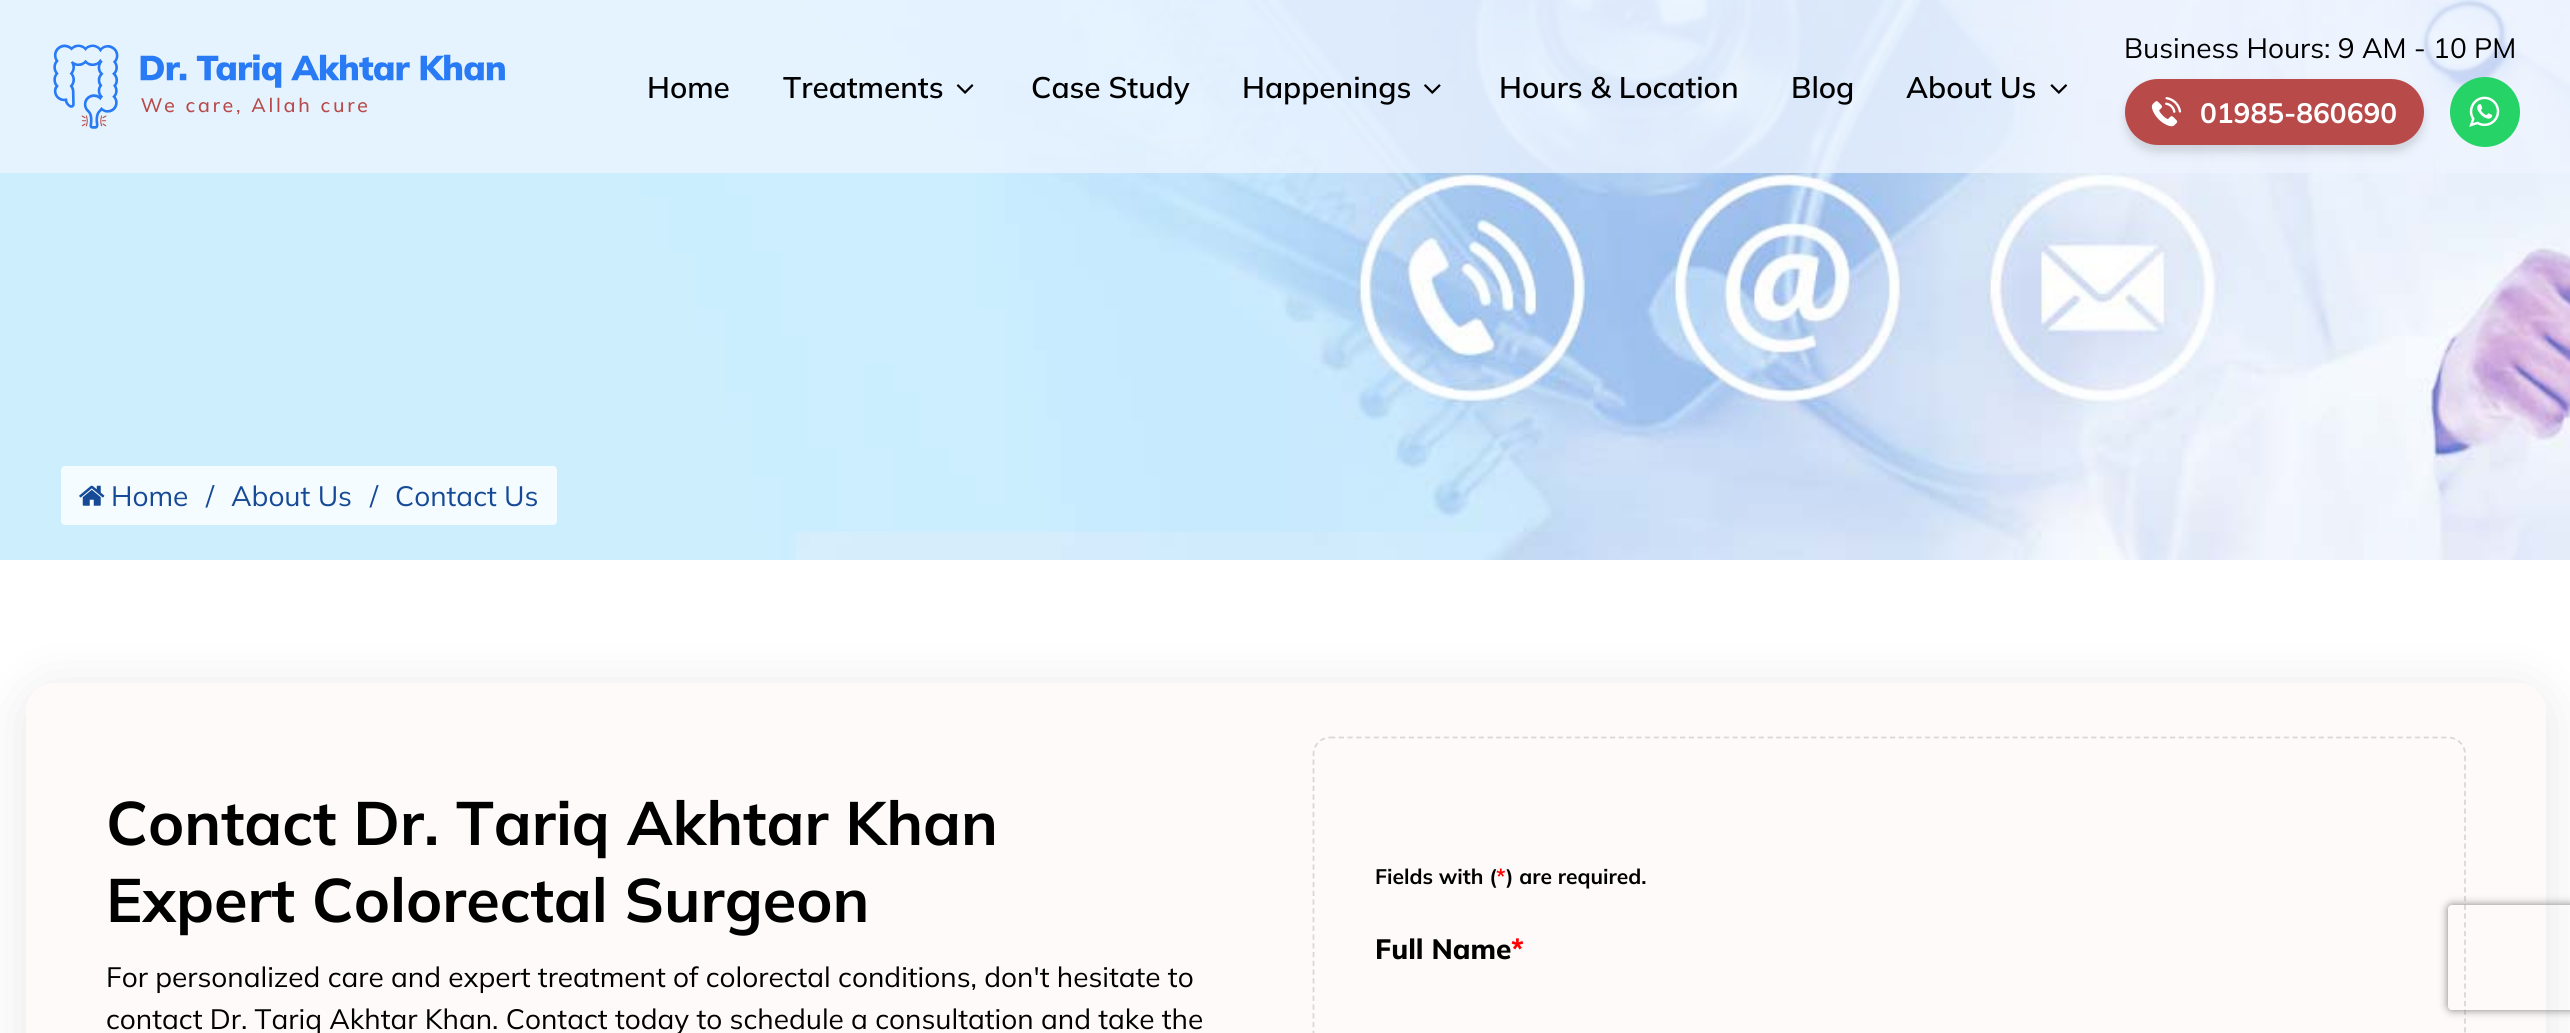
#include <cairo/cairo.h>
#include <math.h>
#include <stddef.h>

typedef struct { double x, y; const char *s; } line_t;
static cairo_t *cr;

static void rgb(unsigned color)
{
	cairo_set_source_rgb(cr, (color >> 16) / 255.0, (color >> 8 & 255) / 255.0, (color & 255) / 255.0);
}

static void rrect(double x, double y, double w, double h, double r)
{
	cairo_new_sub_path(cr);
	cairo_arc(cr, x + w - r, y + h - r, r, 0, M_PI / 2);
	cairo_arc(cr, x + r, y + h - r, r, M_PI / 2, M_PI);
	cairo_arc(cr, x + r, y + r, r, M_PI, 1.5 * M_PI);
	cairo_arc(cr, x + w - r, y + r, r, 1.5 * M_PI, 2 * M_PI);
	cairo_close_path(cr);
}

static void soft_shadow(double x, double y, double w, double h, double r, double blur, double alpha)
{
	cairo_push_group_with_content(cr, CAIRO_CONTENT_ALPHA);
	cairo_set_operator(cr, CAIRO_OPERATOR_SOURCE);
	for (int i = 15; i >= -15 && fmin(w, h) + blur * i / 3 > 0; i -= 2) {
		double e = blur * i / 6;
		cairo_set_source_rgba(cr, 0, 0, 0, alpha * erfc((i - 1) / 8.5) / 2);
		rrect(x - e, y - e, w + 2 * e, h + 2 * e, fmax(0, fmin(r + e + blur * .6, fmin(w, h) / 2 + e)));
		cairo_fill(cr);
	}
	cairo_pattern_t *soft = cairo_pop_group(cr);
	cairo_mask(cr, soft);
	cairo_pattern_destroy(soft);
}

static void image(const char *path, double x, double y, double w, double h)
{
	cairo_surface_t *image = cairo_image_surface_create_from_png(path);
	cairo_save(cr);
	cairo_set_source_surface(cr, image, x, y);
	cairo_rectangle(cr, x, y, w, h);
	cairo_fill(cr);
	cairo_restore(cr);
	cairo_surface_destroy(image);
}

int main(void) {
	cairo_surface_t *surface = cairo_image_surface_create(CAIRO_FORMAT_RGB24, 2570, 1033);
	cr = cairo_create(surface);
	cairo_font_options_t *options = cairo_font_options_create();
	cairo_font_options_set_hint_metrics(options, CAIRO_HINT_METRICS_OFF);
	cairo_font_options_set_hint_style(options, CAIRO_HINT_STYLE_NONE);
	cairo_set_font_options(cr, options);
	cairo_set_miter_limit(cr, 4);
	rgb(0xffffff);
	cairo_paint(cr);
	image("img/7.png", 0, 0, 2570, 560);
	cairo_set_source_rgba(cr, 0.929, 0.957, 1, 0.75);
	cairo_rectangle(cr, 0, 0, 2570, 173);
	cairo_fill(cr);
	image("img/1.png", 53, 44, 452, 85);
	image("img/2.png", 956, 84, 18, 10);
	image("img/3.png", 1424, 84, 17, 10);
	image("img/4.png", 2050, 84, 18, 10);
	rgb(0x3f3d3d);
	soft_shadow(2125, 86, 299, 66, 33, 4.5, 0.18);
	rgb(0xb84a4a);
	rrect(2125, 79, 299, 66, 33);
	cairo_fill(cr);
	image("img/5.png", 2151, 97, 31, 30);
	rgb(0x25d366);
	cairo_arc(cr, 2485, 112, 35, 0, 2 * M_PI);
	cairo_fill(cr);
	image("img/6.png", 2469, 96, 31, 31);
	rgb(0xf5fcff);
	rrect(61, 466, 496, 59, 4);
	cairo_fill(cr);
	image("img/8.png", 79, 485, 26, 21);
	cairo_save(cr);
	cairo_set_fill_rule(cr, CAIRO_FILL_RULE_EVEN_ODD);
	cairo_new_path(cr);
	cairo_move_to(cr, 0, 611);
	cairo_line_to(cr, 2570, 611);
	cairo_line_to(cr, 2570, 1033);
	cairo_line_to(cr, 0, 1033);
	cairo_close_path(cr);
	cairo_move_to(cr, 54, 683);
	cairo_line_to(cr, 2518, 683);
	cairo_curve_to(cr, 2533.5, 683, 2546, 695.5, 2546, 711);
	cairo_line_to(cr, 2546, 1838);
	cairo_curve_to(cr, 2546, 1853.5, 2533.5, 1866, 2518, 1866);
	cairo_line_to(cr, 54, 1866);
	cairo_curve_to(cr, 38.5, 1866, 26, 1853.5, 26, 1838);
	cairo_line_to(cr, 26, 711);
	cairo_curve_to(cr, 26, 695.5, 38.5, 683, 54, 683);
	cairo_close_path(cr);
	cairo_clip(cr);
	rgb(0x000000);
	soft_shadow(26, 690, 2520, 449, 28, 26, 0.1);
	cairo_restore(cr);
	cairo_set_source_rgba(cr, 1, 0.937, 0.937, 0.33);
	rrect(26, 683, 2520, 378, 28);
	cairo_fill(cr);
	cairo_new_path(cr);
	cairo_move_to(cr, 1330, 737.5);
	cairo_line_to(cr, 2448, 737.5);
	cairo_curve_to(cr, 2457.5, 737.5, 2465, 745, 2465, 754);
	cairo_line_to(cr, 2465, 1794);
	cairo_curve_to(cr, 2465, 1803, 2457.5, 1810.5, 2448, 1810.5);
	cairo_line_to(cr, 1330, 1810.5);
	cairo_curve_to(cr, 1321, 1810.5, 1313.5, 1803, 1313.5, 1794);
	cairo_line_to(cr, 1313.5, 754);
	cairo_curve_to(cr, 1313.5, 745, 1321, 737.5, 1330, 737.5);
	cairo_close_path(cr);
	rgb(0xd9d7d7);
	cairo_set_line_width(cr, 1.8);
	cairo_set_dash(cr, (double[]){5.25, 3.5}, 2, 0);
	cairo_stroke(cr);
	cairo_save(cr);
	cairo_set_fill_rule(cr, CAIRO_FILL_RULE_EVEN_ODD);
	cairo_new_path(cr);
	cairo_move_to(cr, 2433, 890);
	cairo_line_to(cr, 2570, 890);
	cairo_line_to(cr, 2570, 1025);
	cairo_line_to(cr, 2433, 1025);
	cairo_close_path(cr);
	cairo_move_to(cr, 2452, 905);
	cairo_line_to(cr, 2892, 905);
	cairo_curve_to(cr, 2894, 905, 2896, 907, 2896, 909);
	cairo_line_to(cr, 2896, 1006);
	cairo_curve_to(cr, 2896, 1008, 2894, 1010, 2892, 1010);
	cairo_line_to(cr, 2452, 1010);
	cairo_curve_to(cr, 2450, 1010, 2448, 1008, 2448, 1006);
	cairo_line_to(cr, 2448, 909);
	cairo_curve_to(cr, 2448, 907, 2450, 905, 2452, 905);
	cairo_close_path(cr);
	cairo_clip(cr);
	rgb(0x808080);
	soft_shadow(2448, 905, 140, 105, 4, 4.5, 1);
	cairo_restore(cr);
	cairo_select_font_face(cr, "Mulish SemiBold", CAIRO_FONT_SLANT_NORMAL, CAIRO_FONT_WEIGHT_NORMAL);
	cairo_set_font_size(cr, 29.75);
	rgb(0x000000);
	{
		static const line_t items[] = {
			{647, 98, "Home"},
			{783, 98, "Treatments"},
			{1031, 98, "Case Study"},
			{1242, 98, "Happenings"},
			{1499, 98, "Hours & Location"},
			{1791, 98, "Blog"},
			{1906, 98, "About Us"},
		};
		for (size_t i = 0; i < sizeof items / sizeof *items; i++) {
			cairo_move_to(cr, items[i].x, items[i].y);
			cairo_show_text(cr, items[i].s);
		}
	}
	cairo_select_font_face(cr, "Mulish", CAIRO_FONT_SLANT_NORMAL, CAIRO_FONT_WEIGHT_NORMAL);
	cairo_set_font_size(cr, 28);
	cairo_move_to(cr, 2124, 58);
	cairo_show_text(cr, "Business Hours: 9 AM - 10 PM");
	cairo_select_font_face(cr, "Mulish", CAIRO_FONT_SLANT_NORMAL, CAIRO_FONT_WEIGHT_BOLD);
	rgb(0xffffff);
	cairo_move_to(cr, 2200, 123);
	cairo_show_text(cr, "01985-860690");
	cairo_select_font_face(cr, "Mulish", CAIRO_FONT_SLANT_NORMAL, CAIRO_FONT_WEIGHT_NORMAL);
	rgb(0x164a97);
	{
		static const line_t items[] = {
			{111, 506, "Home"},
			{206, 506, "/"},
			{231, 506, "About Us"},
			{370, 506, "/"},
			{395, 506, "Contact Us"},
		};
		for (size_t i = 0; i < sizeof items / sizeof *items; i++) {
			cairo_move_to(cr, items[i].x, items[i].y);
			cairo_show_text(cr, items[i].s);
		}
	}
	cairo_select_font_face(cr, "Mulish", CAIRO_FONT_SLANT_NORMAL, CAIRO_FONT_WEIGHT_BOLD);
	cairo_set_font_size(cr, 61.25);
	rgb(0x000000);
	cairo_move_to(cr, 106, 845);
	cairo_show_text(cr, "Contact Dr. Tariq Akhtar Khan");
	cairo_move_to(cr, 106, 922);
	cairo_show_text(cr, "Expert Colorectal Surgeon");
	cairo_select_font_face(cr, "Mulish", CAIRO_FONT_SLANT_NORMAL, CAIRO_FONT_WEIGHT_NORMAL);
	cairo_set_font_size(cr, 28);
	cairo_move_to(cr, 106, 987);
	cairo_show_text(cr, "For personalized care and expert treatment of colorectal conditions, don't hesitate to");
	cairo_move_to(cr, 106, 1029);
	cairo_show_text(cr, "contact Dr. Tariq Akhtar Khan. Contact today to schedule a consultation and take the");
	cairo_select_font_face(cr, "Mulish", CAIRO_FONT_SLANT_NORMAL, CAIRO_FONT_WEIGHT_BOLD);
	cairo_set_font_size(cr, 21);
	cairo_move_to(cr, 1375, 884);
	cairo_show_text(cr, "Fields with (");
	rgb(0xff0000);
	cairo_move_to(cr, 1496, 884);
	cairo_show_text(cr, "*");
	rgb(0x000000);
	cairo_move_to(cr, 1506, 884);
	cairo_show_text(cr, ") are required.");
	cairo_select_font_face(cr, "Mulish ExtraBold", CAIRO_FONT_SLANT_NORMAL, CAIRO_FONT_WEIGHT_NORMAL);
	cairo_set_font_size(cr, 28);
	cairo_move_to(cr, 1375, 959);
	cairo_show_text(cr, "Full Name");
	rgb(0xff0000);
	cairo_move_to(cr, 1511, 959);
	cairo_show_text(cr, "*");
	cairo_surface_write_to_png(surface, "page.png");
	cairo_font_options_destroy(options);
	cairo_destroy(cr);
	cairo_surface_destroy(surface);
	return 0;
}
